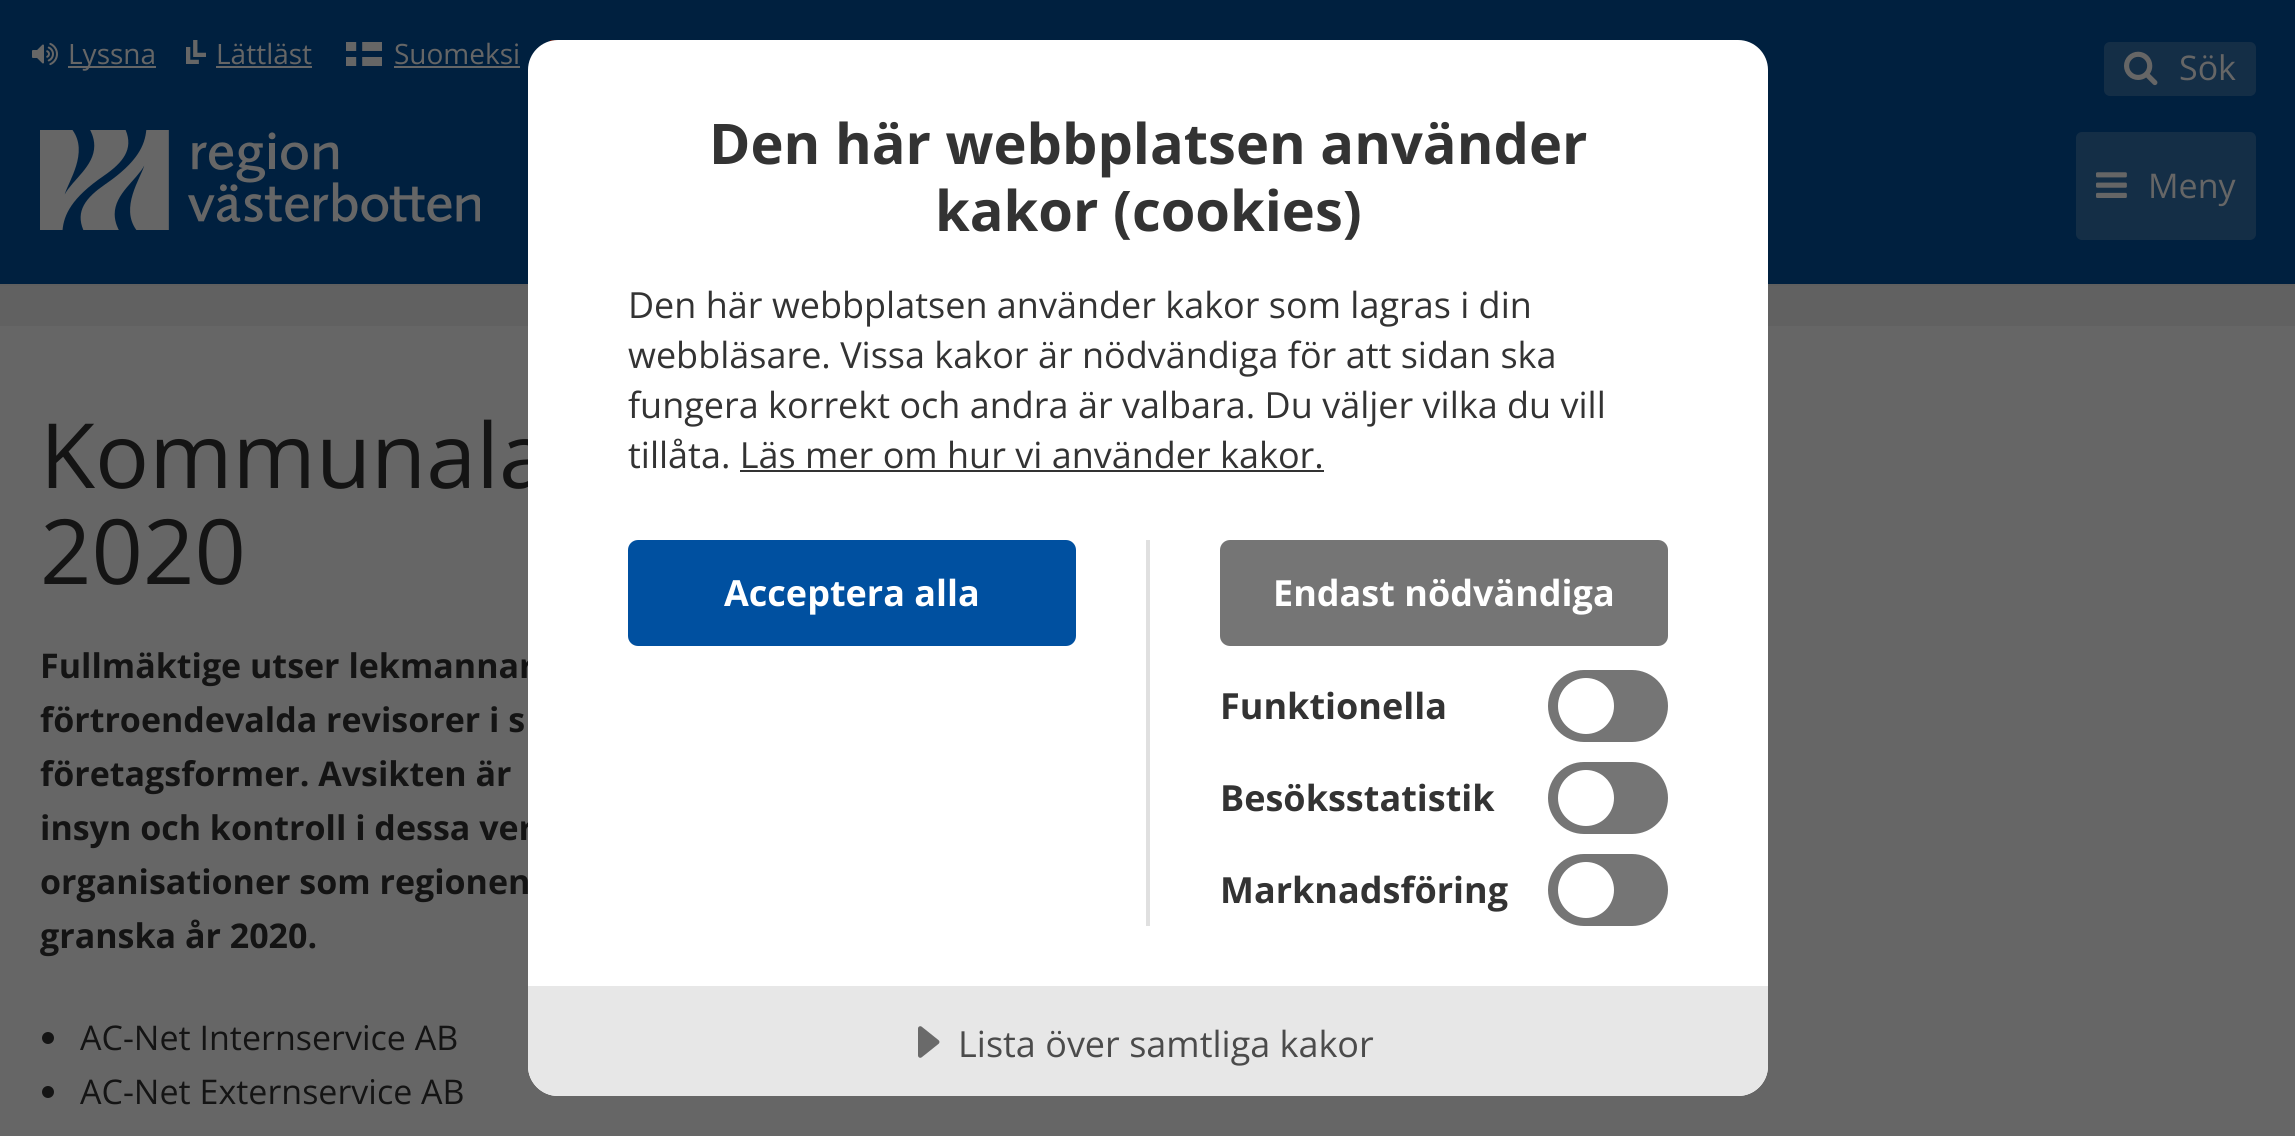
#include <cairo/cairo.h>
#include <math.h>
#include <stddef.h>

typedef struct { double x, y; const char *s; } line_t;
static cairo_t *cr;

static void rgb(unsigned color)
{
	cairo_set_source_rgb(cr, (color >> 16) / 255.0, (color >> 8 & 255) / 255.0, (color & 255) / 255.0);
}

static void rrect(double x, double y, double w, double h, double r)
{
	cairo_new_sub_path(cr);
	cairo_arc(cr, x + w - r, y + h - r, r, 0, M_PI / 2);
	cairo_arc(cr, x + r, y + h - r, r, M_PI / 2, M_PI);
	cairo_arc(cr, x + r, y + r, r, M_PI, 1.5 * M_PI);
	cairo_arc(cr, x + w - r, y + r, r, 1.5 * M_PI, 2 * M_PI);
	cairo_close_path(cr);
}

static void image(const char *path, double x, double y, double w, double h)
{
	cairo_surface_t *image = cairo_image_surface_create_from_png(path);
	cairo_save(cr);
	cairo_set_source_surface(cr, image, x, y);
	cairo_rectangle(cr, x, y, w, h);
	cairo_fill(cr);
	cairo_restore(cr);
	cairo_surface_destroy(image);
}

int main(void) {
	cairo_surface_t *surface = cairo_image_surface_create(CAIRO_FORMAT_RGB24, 2295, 1136);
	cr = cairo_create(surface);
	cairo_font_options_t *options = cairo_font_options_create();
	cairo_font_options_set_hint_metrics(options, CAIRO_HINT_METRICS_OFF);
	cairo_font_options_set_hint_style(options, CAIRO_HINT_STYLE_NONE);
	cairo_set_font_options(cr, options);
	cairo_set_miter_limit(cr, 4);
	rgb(0x00203f);
	cairo_paint(cr);
	rgb(0x5f5f5f);
	cairo_rectangle(cr, 0, 284, 2295, 2);
	cairo_fill(cr);
	image("img/1.png", 550, 40, 8, 2);
	image("img/2.png", 32, 42, 26, 24);
	rgb(0x666666);
	cairo_rectangle(cr, 68, 66, 88, 2);
	cairo_fill(cr);
	image("img/3.png", 186, 40, 20, 24);
	cairo_rectangle(cr, 216, 66, 96, 2);
	cairo_fill(cr);
	cairo_rectangle(cr, 346, 42, 36, 24);
	cairo_fill(cr);
	image("img/4.png", 344, 40, 40, 28);
	cairo_rectangle(cr, 394, 66, 126, 2);
	cairo_fill(cr);
	image("img/5.png", 40, 130, 440, 100);
	rgb(0x142e46);
	rrect(2104, 42, 152, 54, 6);
	cairo_fill(cr);
	image("img/6.png", 2124, 51, 34, 35);
	rrect(2076, 132, 180, 108, 6);
	cairo_fill(cr);
	image("img/7.png", 2096, 172, 31, 26);
	rgb(0x616161);
	cairo_rectangle(cr, 0, 286, 2295, 40);
	cairo_fill(cr);
	rgb(0x666666);
	cairo_rectangle(cr, 0, 326, 2295, 810);
	cairo_fill(cr);
	rgb(0x141414);
	cairo_arc(cr, 48, 1038, 6, 0, 2 * M_PI);
	cairo_fill(cr);
	cairo_arc(cr, 48, 1092, 6, 0, 2 * M_PI);
	cairo_fill(cr);
	cairo_select_font_face(cr, "Open Sans", CAIRO_FONT_SLANT_NORMAL, CAIRO_FONT_WEIGHT_NORMAL);
	cairo_set_font_size(cr, 28);
	rgb(0x666666);
	{
		static const line_t items[] = {
			{68, 64, "Lyssna"},
			{216, 64, "Lättläst"},
			{394, 64, "Suomeksi"},
		};
		for (size_t i = 0; i < sizeof items / sizeof *items; i++) {
			cairo_move_to(cr, items[i].x, items[i].y);
			cairo_show_text(cr, items[i].s);
		}
	}
	cairo_set_font_size(cr, 34);
	cairo_move_to(cr, 2179, 80);
	cairo_show_text(cr, "Sök");
	cairo_move_to(cr, 2148, 198);
	cairo_show_text(cr, "Meny");
	cairo_set_font_size(cr, 90);
	rgb(0x141414);
	cairo_move_to(cr, 40, 488);
	cairo_show_text(cr, "Kommunala");
	cairo_move_to(cr, 40, 584);
	cairo_show_text(cr, "2020");
	cairo_select_font_face(cr, "Open Sans", CAIRO_FONT_SLANT_NORMAL, CAIRO_FONT_WEIGHT_BOLD);
	cairo_set_font_size(cr, 34);
	{
		static const line_t items[] = {
			{40, 678, "Fullmäktige utser lekmannar"},
			{40, 732, "förtroendevalda revisorer i s"},
			{40, 786, "företagsformer. Avsikten är"},
			{40, 840, "insyn och kontroll i dessa ver"},
			{40, 894, "organisationer som regionen"},
			{40, 948, "granska år 2020."},
		};
		for (size_t i = 0; i < sizeof items / sizeof *items; i++) {
			cairo_move_to(cr, items[i].x, items[i].y);
			cairo_show_text(cr, items[i].s);
		}
	}
	cairo_select_font_face(cr, "Open Sans", CAIRO_FONT_SLANT_NORMAL, CAIRO_FONT_WEIGHT_NORMAL);
	cairo_move_to(cr, 80, 1050);
	cairo_show_text(cr, "AC-Net Internservice AB");
	cairo_move_to(cr, 80, 1104);
	cairo_show_text(cr, "AC-Net Externservice AB");
	rgb(0xffffff);
	rrect(528, 40, 1240, 1056, 30);
	cairo_fill(cr);
	cairo_select_font_face(cr, "Open Sans", CAIRO_FONT_SLANT_NORMAL, CAIRO_FONT_WEIGHT_BOLD);
	cairo_set_font_size(cr, 56);
	rgb(0x333333);
	cairo_move_to(cr, 709, 164);
	cairo_show_text(cr, "Den här webbplatsen använder");
	cairo_move_to(cr, 935, 231);
	cairo_show_text(cr, "kakor (cookies)");
	cairo_select_font_face(cr, "Open Sans", CAIRO_FONT_SLANT_NORMAL, CAIRO_FONT_WEIGHT_NORMAL);
	cairo_set_font_size(cr, 36);
	{
		static const line_t items[] = {
			{628, 318, "Den här webbplatsen använder kakor som lagras i din"},
			{628, 368, "webbläsare. Vissa kakor är nödvändiga för att sidan ska"},
			{628, 418, "fungera korrekt och andra är valbara. Du väljer vilka du vill"},
			{628, 468, "tillåta. Läs mer om hur vi använder kakor."},
		};
		for (size_t i = 0; i < sizeof items / sizeof *items; i++) {
			cairo_move_to(cr, items[i].x, items[i].y);
			cairo_show_text(cr, items[i].s);
		}
	}
	cairo_rectangle(cr, 740, 470, 584, 2);
	cairo_fill(cr);
	rgb(0xe0e0e0);
	cairo_rectangle(cr, 1146, 540, 4, 386);
	cairo_fill(cr);
	rgb(0x0050a0);
	rrect(628, 540, 448, 106, 10);
	cairo_fill(cr);
	cairo_select_font_face(cr, "Open Sans", CAIRO_FONT_SLANT_NORMAL, CAIRO_FONT_WEIGHT_BOLD);
	rgb(0xffffff);
	cairo_move_to(cr, 724, 606);
	cairo_show_text(cr, "Acceptera alla");
	rgb(0x757575);
	rrect(1220, 540, 448, 106, 10);
	cairo_fill(cr);
	rgb(0xffffff);
	cairo_move_to(cr, 1273, 606);
	cairo_show_text(cr, "Endast nödvändiga");
	rgb(0x333333);
	cairo_move_to(cr, 1220, 719);
	cairo_show_text(cr, "Funktionella");
	rgb(0x757575);
	rrect(1548, 670, 120, 72, 36);
	cairo_fill(cr);
	rgb(0xffffff);
	cairo_arc(cr, 1586, 706, 28, 0, 2 * M_PI);
	cairo_fill(cr);
	rgb(0x333333);
	cairo_move_to(cr, 1220, 811);
	cairo_show_text(cr, "Besöksstatistik");
	rgb(0x757575);
	rrect(1548, 762, 120, 72, 36);
	cairo_fill(cr);
	rgb(0xffffff);
	cairo_arc(cr, 1586, 798, 28, 0, 2 * M_PI);
	cairo_fill(cr);
	rgb(0x333333);
	cairo_move_to(cr, 1220, 903);
	cairo_show_text(cr, "Marknadsföring");
	rgb(0x757575);
	rrect(1548, 854, 120, 72, 36);
	cairo_fill(cr);
	rgb(0xffffff);
	cairo_arc(cr, 1586, 890, 28, 0, 2 * M_PI);
	cairo_fill(cr);
	rgb(0xe7e7e7);
	cairo_new_path(cr);
	cairo_move_to(cr, 528, 986);
	cairo_line_to(cr, 1768, 986);
	cairo_line_to(cr, 1768, 1066);
	cairo_curve_to(cr, 1768, 1082.5, 1754.5, 1096, 1738, 1096);
	cairo_line_to(cr, 558, 1096);
	cairo_curve_to(cr, 541.5, 1096, 528, 1082.5, 528, 1066);
	cairo_close_path(cr);
	cairo_fill(cr);
	image("img/8.png", 918, 1026, 22, 32);
	cairo_select_font_face(cr, "Open Sans", CAIRO_FONT_SLANT_NORMAL, CAIRO_FONT_WEIGHT_NORMAL);
	rgb(0x4b4b4b);
	cairo_move_to(cr, 958, 1057);
	cairo_show_text(cr, "Lista över samtliga kakor");
	cairo_surface_write_to_png(surface, "page.png");
	cairo_font_options_destroy(options);
	cairo_destroy(cr);
	cairo_surface_destroy(surface);
	return 0;
}
